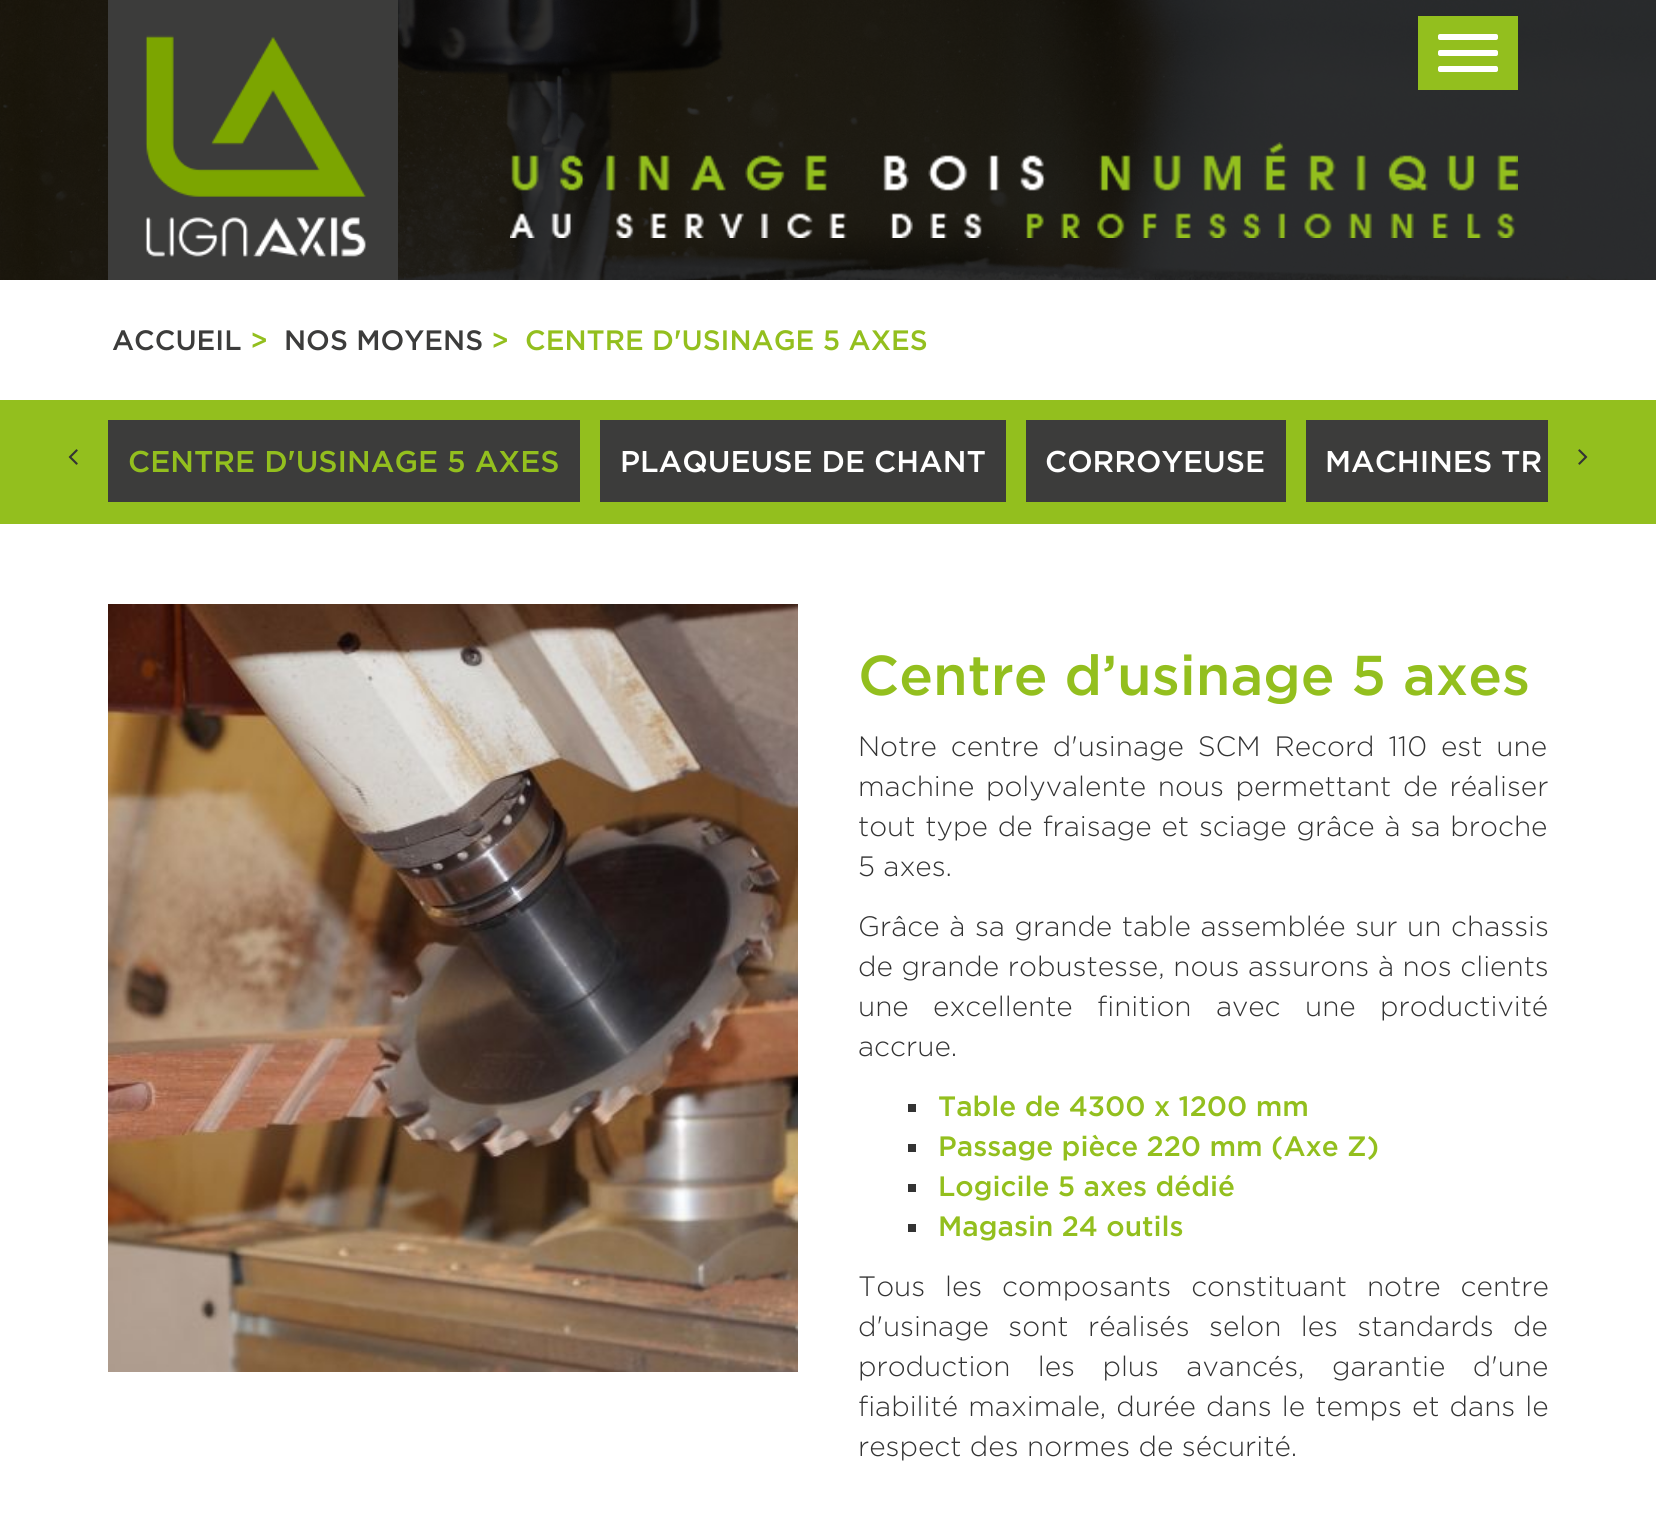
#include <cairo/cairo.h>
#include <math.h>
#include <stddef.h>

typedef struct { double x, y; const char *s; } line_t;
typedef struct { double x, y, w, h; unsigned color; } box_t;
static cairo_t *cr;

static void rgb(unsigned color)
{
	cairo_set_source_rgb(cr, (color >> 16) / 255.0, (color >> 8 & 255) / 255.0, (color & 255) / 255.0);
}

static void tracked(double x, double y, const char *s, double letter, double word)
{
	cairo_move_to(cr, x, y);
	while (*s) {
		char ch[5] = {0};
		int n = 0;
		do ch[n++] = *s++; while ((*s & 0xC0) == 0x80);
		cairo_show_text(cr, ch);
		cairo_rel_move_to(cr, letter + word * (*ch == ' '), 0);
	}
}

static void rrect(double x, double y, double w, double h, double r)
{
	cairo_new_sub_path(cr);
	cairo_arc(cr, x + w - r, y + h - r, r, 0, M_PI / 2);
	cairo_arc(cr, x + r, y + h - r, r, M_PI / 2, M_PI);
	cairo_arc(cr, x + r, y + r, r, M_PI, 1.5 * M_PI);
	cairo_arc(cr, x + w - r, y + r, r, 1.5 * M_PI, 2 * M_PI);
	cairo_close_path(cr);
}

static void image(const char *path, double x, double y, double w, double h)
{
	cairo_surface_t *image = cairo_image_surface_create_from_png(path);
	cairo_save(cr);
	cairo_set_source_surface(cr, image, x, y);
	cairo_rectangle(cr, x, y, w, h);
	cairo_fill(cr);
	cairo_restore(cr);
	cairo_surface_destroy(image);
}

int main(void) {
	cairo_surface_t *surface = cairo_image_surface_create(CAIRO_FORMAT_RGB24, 1656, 1531);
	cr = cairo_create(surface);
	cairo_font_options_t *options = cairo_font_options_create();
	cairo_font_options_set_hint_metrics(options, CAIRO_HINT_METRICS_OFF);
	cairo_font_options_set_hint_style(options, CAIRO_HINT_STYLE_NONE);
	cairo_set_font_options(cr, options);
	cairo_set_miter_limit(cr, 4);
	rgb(0xffffff);
	cairo_paint(cr);
	image("img/1.png", 0, 0, 1656, 280);
	image("img/2.png", 108, 0, 290, 280);
	rgb(0x93bf1e);
	cairo_rectangle(cr, 1418, 16, 100, 74);
	cairo_fill(cr);
	rgb(0xffffff);
	rrect(1438, 34, 60, 6, 2);
	cairo_fill(cr);
	rrect(1438, 50, 60, 6, 2);
	cairo_fill(cr);
	rrect(1438, 66, 60, 6, 2);
	cairo_fill(cr);
	image("img/3.png", 510, 142, 1008, 96);
	rgb(0x93bf1e);
	cairo_rectangle(cr, 0, 400, 1656, 124);
	cairo_fill(cr);
	image("img/4.png", 68, 449, 10, 16);
	image("img/5.png", 1578, 449, 10, 16);
	{
		static const box_t items[] = {
			{108, 420, 472, 82, 0x3c3c3b},
			{600, 420, 406, 82, 0x3c3c3b},
			{1026, 420, 260, 82, 0x3c3c3b},
			{1306, 420, 242, 82, 0x3c3c3b},
		};
		for (size_t i = 0; i < sizeof items / sizeof *items; i++) {
			rgb(items[i].color);
			cairo_rectangle(cr, items[i].x, items[i].y, items[i].w, items[i].h);
			cairo_fill(cr);
		}
	}
	image("img/6.png", 108, 604, 690, 768);
	{
		static const box_t items[] = {
			{908, 1104, 8, 8, 0x333333},
			{908, 1144, 8, 8, 0x333333},
			{908, 1184, 8, 8, 0x333333},
			{908, 1224, 8, 8, 0x333333},
		};
		for (size_t i = 0; i < sizeof items / sizeof *items; i++) {
			rgb(items[i].color);
			cairo_rectangle(cr, items[i].x, items[i].y, items[i].w, items[i].h);
			cairo_fill(cr);
		}
	}
	cairo_select_font_face(cr, "Gotham Medium", CAIRO_FONT_SLANT_NORMAL, CAIRO_FONT_WEIGHT_NORMAL);
	cairo_set_font_size(cr, 28);
	rgb(0x3c3c3b);
	cairo_move_to(cr, 112, 350);
	cairo_show_text(cr, "ACCUEIL");
	rgb(0x93bf1e);
	cairo_move_to(cr, 250, 350);
	cairo_show_text(cr, ">");
	rgb(0x3c3c3b);
	cairo_move_to(cr, 284, 350);
	cairo_show_text(cr, "NOS MOYENS");
	rgb(0x93bf1e);
	cairo_move_to(cr, 491, 350);
	cairo_show_text(cr, ">");
	cairo_move_to(cr, 525, 350);
	cairo_show_text(cr, "CENTRE D'USINAGE 5 AXES");
	cairo_set_font_size(cr, 30);
	cairo_move_to(cr, 128, 472);
	cairo_show_text(cr, "CENTRE D'USINAGE 5 AXES");
	rgb(0xffffff);
	{
		static const line_t items[] = {
			{620, 472, "PLAQUEUSE DE CHANT"},
			{1045, 472, "CORROYEUSE"},
			{1325, 472, "MACHINES TR"},
		};
		for (size_t i = 0; i < sizeof items / sizeof *items; i++) {
			cairo_move_to(cr, items[i].x, items[i].y);
			cairo_show_text(cr, items[i].s);
		}
	}
	cairo_set_font_size(cr, 56);
	rgb(0x93bf1e);
	cairo_move_to(cr, 858, 695);
	cairo_show_text(cr, "Centre d’usinage 5 axes");
	cairo_select_font_face(cr, "Gotham Light", CAIRO_FONT_SLANT_NORMAL, CAIRO_FONT_WEIGHT_NORMAL);
	cairo_set_font_size(cr, 28);
	rgb(0x333333);
	tracked(858, 756, "Notre centre d'usinage SCM Record 110 est une", 0, 5.5);
	tracked(858, 796, "machine polyvalente nous permettant de réaliser", 0, 3.25);
	tracked(858, 836, "tout type de fraisage et sciage grâce à sa broche", 0, 1.5);
	cairo_move_to(cr, 858, 876);
	cairo_show_text(cr, "5 axes.");
	tracked(858, 936, "Grâce à sa grande table assemblée sur un chassis", 0, 1.25);
	tracked(858, 976, "de grande robustesse, nous assurons à nos clients", 0, 0.25);
	tracked(858, 1016, "une excellente finition avec une productivité", 0, 16);
	cairo_move_to(cr, 858, 1056);
	cairo_show_text(cr, "accrue.");
	cairo_select_font_face(cr, "Gotham Medium", CAIRO_FONT_SLANT_NORMAL, CAIRO_FONT_WEIGHT_NORMAL);
	rgb(0x93bf1e);
	{
		static const line_t items[] = {
			{938, 1116, "Table de 4300 x 1200 mm"},
			{938, 1156, "Passage pièce 220 mm (Axe Z)"},
			{938, 1196, "Logicile 5 axes dédié"},
			{938, 1236, "Magasin 24 outils"},
		};
		for (size_t i = 0; i < sizeof items / sizeof *items; i++) {
			cairo_move_to(cr, items[i].x, items[i].y);
			cairo_show_text(cr, items[i].s);
		}
	}
	cairo_select_font_face(cr, "Gotham Light", CAIRO_FONT_SLANT_NORMAL, CAIRO_FONT_WEIGHT_NORMAL);
	rgb(0x333333);
	tracked(858, 1296, "Tous les composants constituant notre centre", 0, 11.5);
	tracked(858, 1336, "d'usinage sont réalisés selon les standards de", 0, 11);
	tracked(858, 1376, "production les plus avancés, garantie d'une", 0, 19);
	tracked(858, 1416, "fiabilité maximale, durée dans le temps et dans le", 0, 1.75);
	cairo_move_to(cr, 858, 1456);
	cairo_show_text(cr, "respect des normes de sécurité.");
	cairo_surface_write_to_png(surface, "page.png");
	cairo_font_options_destroy(options);
	cairo_destroy(cr);
	cairo_surface_destroy(surface);
	return 0;
}
